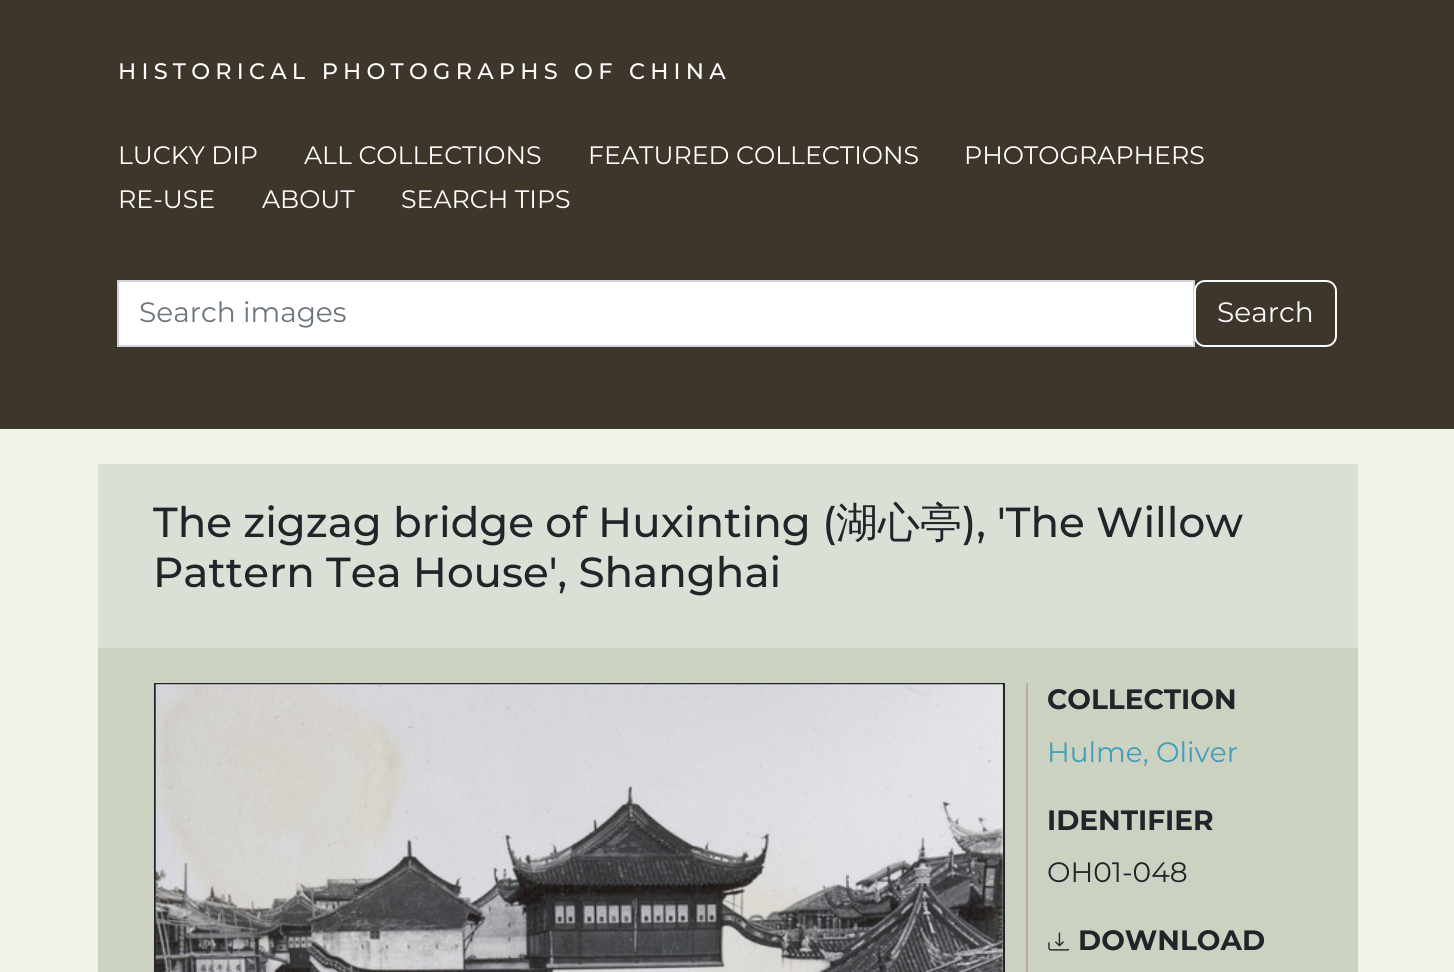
#include <cairo/cairo.h>
#include <math.h>
#include <stddef.h>

typedef struct { double x, y; const char *s; } line_t;
static cairo_t *cr;

static void rgb(unsigned color)
{
	cairo_set_source_rgb(cr, (color >> 16) / 255.0, (color >> 8 & 255) / 255.0, (color & 255) / 255.0);
}

static void tracked(double x, double y, const char *s, double letter, double word)
{
	cairo_move_to(cr, x, y);
	while (*s) {
		char ch[5] = {0};
		int n = 0;
		do ch[n++] = *s++; while ((*s & 0xC0) == 0x80);
		cairo_show_text(cr, ch);
		cairo_rel_move_to(cr, letter + word * (*ch == ' '), 0);
	}
}

static void rrect(double x, double y, double w, double h, double r)
{
	cairo_new_sub_path(cr);
	cairo_arc(cr, x + w - r, y + h - r, r, 0, M_PI / 2);
	cairo_arc(cr, x + r, y + h - r, r, M_PI / 2, M_PI);
	cairo_arc(cr, x + r, y + r, r, M_PI, 1.5 * M_PI);
	cairo_arc(cr, x + w - r, y + r, r, 1.5 * M_PI, 2 * M_PI);
	cairo_close_path(cr);
}

static void image(const char *path, double x, double y, double w, double h)
{
	cairo_surface_t *image = cairo_image_surface_create_from_png(path);
	cairo_save(cr);
	cairo_set_source_surface(cr, image, x, y);
	cairo_rectangle(cr, x, y, w, h);
	cairo_fill(cr);
	cairo_restore(cr);
	cairo_surface_destroy(image);
}

int main(void) {
	cairo_surface_t *surface = cairo_image_surface_create(CAIRO_FORMAT_RGB24, 1454, 972);
	cr = cairo_create(surface);
	cairo_font_options_t *options = cairo_font_options_create();
	cairo_font_options_set_hint_metrics(options, CAIRO_HINT_METRICS_OFF);
	cairo_font_options_set_hint_style(options, CAIRO_HINT_STYLE_NONE);
	cairo_set_font_options(cr, options);
	cairo_set_miter_limit(cr, 4);
	rgb(0xf2f2e9);
	cairo_paint(cr);
	rgb(0x3f362b);
	cairo_rectangle(cr, 0, 0, 1454, 429);
	cairo_fill(cr);
	rgb(0xffffff);
	cairo_rectangle(cr, 118, 281, 1076, 65);
	cairo_fill_preserve(cr);
	rgb(0xced4da);
	cairo_stroke(cr);
	rrect(1195, 281, 141, 65, 10);
	rgb(0xf8f9fa);
	cairo_stroke(cr);
	rgb(0xd9e0d6);
	cairo_rectangle(cr, 98, 464, 1260, 184);
	cairo_fill(cr);
	rgb(0xcbd2c2);
	cairo_rectangle(cr, 98, 648, 1260, 324);
	cairo_fill(cr);
	cairo_rectangle(cr, 155, 684, 849, 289);
	rgb(0x212529);
	cairo_stroke(cr);
	image("img/1.png", 155, 684, 848, 288);
	rgb(0xbbaaaa);
	cairo_rectangle(cr, 1026, 683, 2, 289);
	cairo_fill(cr);
	image("img/2.png", 1048, 932, 21, 19);
	cairo_select_font_face(cr, "Montserrat Medium", CAIRO_FONT_SLANT_NORMAL, CAIRO_FONT_WEIGHT_NORMAL);
	cairo_set_font_size(cr, 22.4);
	rgb(0xffffff);
	tracked(118, 79, "HISTORICAL PHOTOGRAPHS OF CHINA", 5.25, 0);
	cairo_select_font_face(cr, "Montserrat", CAIRO_FONT_SLANT_NORMAL, CAIRO_FONT_WEIGHT_NORMAL);
	cairo_set_font_size(cr, 25.25);
	{
		static const line_t items[] = {
			{118, 164, "LUCKY DIP"},
			{304, 164, "ALL COLLECTIONS"},
			{588, 164, "FEATURED COLLECTIONS"},
			{964, 164, "PHOTOGRAPHERS"},
			{118, 208, "RE-USE"},
			{262, 208, "ABOUT"},
			{401, 208, "SEARCH TIPS"},
		};
		for (size_t i = 0; i < sizeof items / sizeof *items; i++) {
			cairo_move_to(cr, items[i].x, items[i].y);
			cairo_show_text(cr, items[i].s);
		}
	}
	cairo_set_font_size(cr, 28);
	rgb(0x6c757d);
	cairo_move_to(cr, 139, 322);
	cairo_show_text(cr, "Search images");
	rgb(0xf8f9fa);
	cairo_move_to(cr, 1217, 322);
	cairo_show_text(cr, "Search");
	cairo_select_font_face(cr, "Montserrat Medium", CAIRO_FONT_SLANT_NORMAL, CAIRO_FONT_WEIGHT_NORMAL);
	cairo_set_font_size(cr, 42);
	rgb(0x212529);
	cairo_move_to(cr, 153, 537);
	cairo_show_text(cr, "The zigzag bridge of Huxinting (");
	cairo_select_font_face(cr, "WenQuanYi Zen Hei Medium", CAIRO_FONT_SLANT_NORMAL, CAIRO_FONT_WEIGHT_NORMAL);
	cairo_move_to(cr, 836, 537);
	cairo_show_text(cr, "湖心亭");
	cairo_select_font_face(cr, "Montserrat Medium", CAIRO_FONT_SLANT_NORMAL, CAIRO_FONT_WEIGHT_NORMAL);
	cairo_move_to(cr, 962, 537);
	cairo_show_text(cr, "), 'The Willow");
	cairo_move_to(cr, 153, 587);
	cairo_show_text(cr, "Pattern Tea House', Shanghai");
	cairo_select_font_face(cr, "Montserrat", CAIRO_FONT_SLANT_NORMAL, CAIRO_FONT_WEIGHT_BOLD);
	cairo_set_font_size(cr, 28);
	cairo_move_to(cr, 1047, 709);
	cairo_show_text(cr, "COLLECTION");
	cairo_select_font_face(cr, "Montserrat", CAIRO_FONT_SLANT_NORMAL, CAIRO_FONT_WEIGHT_NORMAL);
	rgb(0x419db8);
	cairo_move_to(cr, 1047, 762);
	cairo_show_text(cr, "Hulme, Oliver");
	cairo_select_font_face(cr, "Montserrat", CAIRO_FONT_SLANT_NORMAL, CAIRO_FONT_WEIGHT_BOLD);
	rgb(0x212529);
	cairo_move_to(cr, 1047, 830);
	cairo_show_text(cr, "IDENTIFIER");
	cairo_select_font_face(cr, "Montserrat", CAIRO_FONT_SLANT_NORMAL, CAIRO_FONT_WEIGHT_NORMAL);
	cairo_move_to(cr, 1047, 882);
	cairo_show_text(cr, "OH01-048");
	cairo_select_font_face(cr, "Montserrat", CAIRO_FONT_SLANT_NORMAL, CAIRO_FONT_WEIGHT_BOLD);
	cairo_move_to(cr, 1078, 950);
	cairo_show_text(cr, "DOWNLOAD");
	cairo_surface_write_to_png(surface, "page.png");
	cairo_font_options_destroy(options);
	cairo_destroy(cr);
	cairo_surface_destroy(surface);
	return 0;
}
